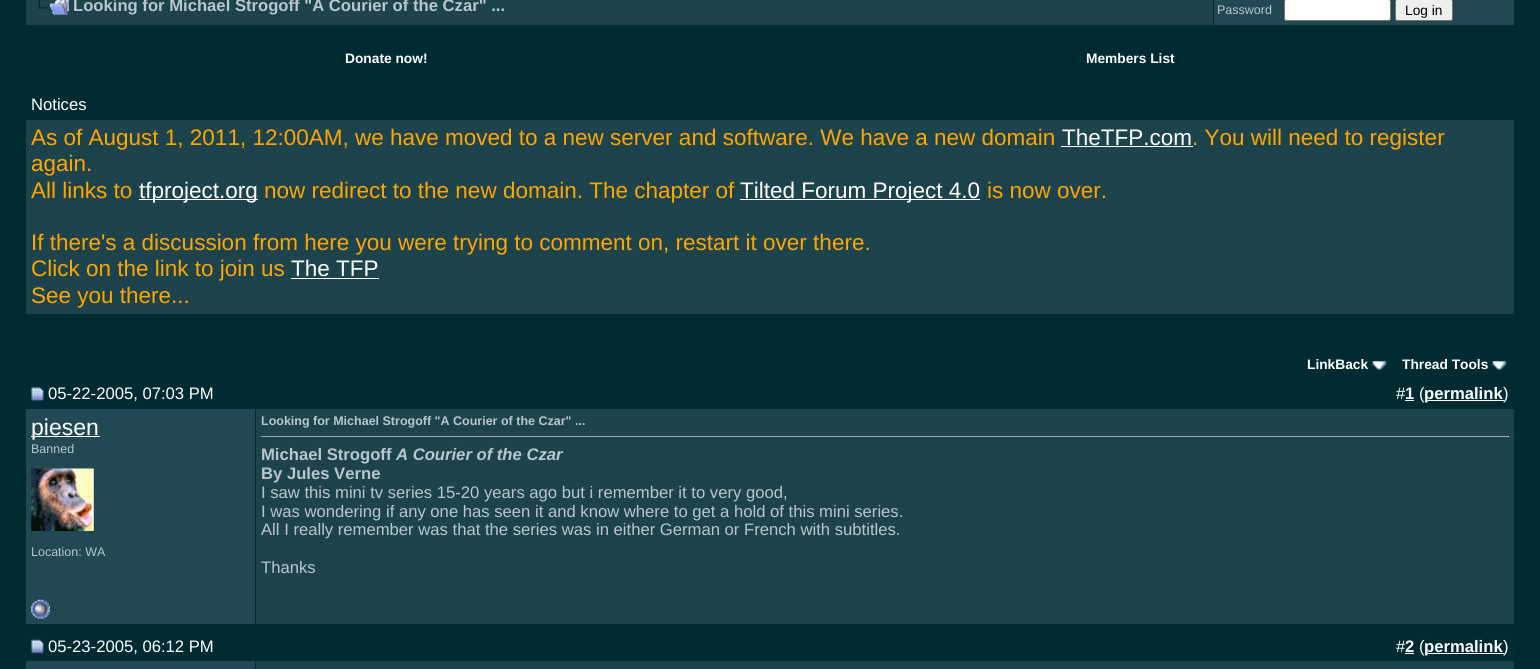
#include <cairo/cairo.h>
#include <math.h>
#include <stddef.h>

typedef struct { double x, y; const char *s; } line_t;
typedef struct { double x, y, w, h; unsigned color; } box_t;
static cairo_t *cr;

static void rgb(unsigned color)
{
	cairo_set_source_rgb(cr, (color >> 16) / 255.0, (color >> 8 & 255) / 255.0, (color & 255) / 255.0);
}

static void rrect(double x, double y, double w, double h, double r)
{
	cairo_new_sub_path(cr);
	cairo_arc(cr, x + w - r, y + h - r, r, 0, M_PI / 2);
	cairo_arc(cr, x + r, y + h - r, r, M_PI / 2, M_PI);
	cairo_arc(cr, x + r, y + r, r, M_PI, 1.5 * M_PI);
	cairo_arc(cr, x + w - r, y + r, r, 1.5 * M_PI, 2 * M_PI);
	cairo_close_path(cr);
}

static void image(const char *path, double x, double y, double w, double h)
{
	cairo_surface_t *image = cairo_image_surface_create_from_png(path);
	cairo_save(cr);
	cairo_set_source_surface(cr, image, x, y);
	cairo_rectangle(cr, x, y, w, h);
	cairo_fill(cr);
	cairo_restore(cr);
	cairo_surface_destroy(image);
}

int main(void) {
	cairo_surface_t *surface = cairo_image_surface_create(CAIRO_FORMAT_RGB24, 1540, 669);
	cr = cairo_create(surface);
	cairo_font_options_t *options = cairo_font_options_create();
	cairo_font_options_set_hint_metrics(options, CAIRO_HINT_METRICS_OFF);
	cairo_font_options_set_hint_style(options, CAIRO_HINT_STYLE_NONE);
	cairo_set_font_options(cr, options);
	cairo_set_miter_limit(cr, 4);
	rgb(0x002b33);
	cairo_paint(cr);
	rgb(0x1d444d);
	cairo_rectangle(cr, 26, 0, 1187, 25);
	cairo_fill(cr);
	image("img/1.png", 38, 0, 31, 15);
	rgb(0x224953);
	cairo_rectangle(cr, 1214, 0, 300, 25);
	cairo_fill(cr);
	rgb(0xffffff);
	rrect(1284.5, -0.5, 106, 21, 2);
	cairo_fill_preserve(cr);
	rgb(0x767676);
	cairo_set_line_width(cr, 1);
	cairo_stroke(cr);
	rgb(0xefefef);
	rrect(1395.5, -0.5, 57, 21, 2);
	cairo_fill_preserve(cr);
	rgb(0x767676);
	cairo_stroke(cr);
	{
		static const box_t items[] = {
			{26, 120, 1488, 194, 0x1d444d},
			{1061, 146, 132, 1, 0xffffff},
			{139, 199, 119, 1, 0xffffff},
			{740, 199, 240, 1, 0xffffff},
			{291, 278, 88, 1, 0xffffff},
		};
		for (size_t i = 0; i < sizeof items / sizeof *items; i++) {
			rgb(items[i].color);
			cairo_rectangle(cr, items[i].x, items[i].y, items[i].w, items[i].h);
			cairo_fill(cr);
		}
	}
	image("img/2.png", 1372, 361, 15, 9);
	image("img/2.png", 1492, 361, 15, 9);
	image("img/3.png", 31, 387, 13, 14);
	{
		static const box_t items[] = {
			{1405, 400, 9, 1, 0xffffff},
			{1425, 400, 79, 1, 0xffffff},
			{26, 409, 229, 215, 0x224953},
			{31, 436, 69, 1, 0xffffff},
		};
		for (size_t i = 0; i < sizeof items / sizeof *items; i++) {
			rgb(items[i].color);
			cairo_rectangle(cr, items[i].x, items[i].y, items[i].w, items[i].h);
			cairo_fill(cr);
		}
	}
	image("img/4.png", 31, 468, 63, 63);
	{
		static const box_t items[] = {
			{256, 409, 1258, 215, 0x1d444d},
			{261, 436, 1248, 1, 0x9f9f9f},
			{1508, 436, 1, 1, 0xeeeeee},
		};
		for (size_t i = 0; i < sizeof items / sizeof *items; i++) {
			rgb(items[i].color);
			cairo_rectangle(cr, items[i].x, items[i].y, items[i].w, items[i].h);
			cairo_fill(cr);
		}
	}
	image("img/5.png", 31, 599, 19, 20);
	image("img/6.png", 31, 639, 13, 15);
	{
		static const box_t items[] = {
			{1405, 653, 9, 1, 0xffffff},
			{1425, 653, 79, 1, 0xffffff},
			{25, 661, 231, 8, 0x224953},
			{255, 661, 1, 8, 0x002b33},
			{25, 661, 1, 8, 0x002b33},
			{256, 661, 1259, 8, 0x1d444d},
			{1514, 661, 1, 8, 0x002b33},
		};
		for (size_t i = 0; i < sizeof items / sizeof *items; i++) {
			rgb(items[i].color);
			cairo_rectangle(cr, items[i].x, items[i].y, items[i].w, items[i].h);
			cairo_fill(cr);
		}
	}
	cairo_select_font_face(cr, "Liberation Sans", CAIRO_FONT_SLANT_NORMAL, CAIRO_FONT_WEIGHT_BOLD);
	cairo_set_font_size(cr, 16.65);
	rgb(0xb8c6cd);
	cairo_move_to(cr, 73, 11);
	cairo_show_text(cr, "Looking for Michael Strogoff \"A Courier of the Czar\" ...");
	cairo_select_font_face(cr, "Liberation Sans", CAIRO_FONT_SLANT_NORMAL, CAIRO_FONT_WEIGHT_NORMAL);
	cairo_set_font_size(cr, 12.5);
	cairo_move_to(cr, 1217, 14);
	cairo_show_text(cr, "Password");
	cairo_set_font_size(cr, 13.75);
	rgb(0x000000);
	cairo_move_to(cr, 1405, 15);
	cairo_show_text(cr, "Log in");
	cairo_select_font_face(cr, "Liberation Sans", CAIRO_FONT_SLANT_NORMAL, CAIRO_FONT_WEIGHT_BOLD);
	rgb(0xffffff);
	cairo_move_to(cr, 345, 63);
	cairo_show_text(cr, "Donate now!");
	cairo_move_to(cr, 1086, 63);
	cairo_show_text(cr, "Members List");
	cairo_select_font_face(cr, "Liberation Sans", CAIRO_FONT_SLANT_NORMAL, CAIRO_FONT_WEIGHT_NORMAL);
	cairo_set_font_size(cr, 16.65);
	cairo_move_to(cr, 31, 110);
	cairo_show_text(cr, "Notices");
	cairo_set_font_size(cr, 22.5);
	rgb(0xffa500);
	cairo_move_to(cr, 31, 145);
	cairo_show_text(cr, "As of August 1, 2011, 12:00AM, we have moved to a new server and software. We have a new domain");
	rgb(0xffffff);
	cairo_move_to(cr, 1062, 145);
	cairo_show_text(cr, "TheTFP.com");
	rgb(0xffa500);
	{
		static const line_t items[] = {
			{1192, 145, ". You will need to register"},
			{31, 171, "again."},
			{31, 198, "All links to"},
		};
		for (size_t i = 0; i < sizeof items / sizeof *items; i++) {
			cairo_move_to(cr, items[i].x, items[i].y);
			cairo_show_text(cr, items[i].s);
		}
	}
	rgb(0xffffff);
	cairo_move_to(cr, 139, 198);
	cairo_show_text(cr, "tfproject.org");
	rgb(0xffa500);
	cairo_move_to(cr, 264, 198);
	cairo_show_text(cr, "now redirect to the new domain. The chapter of");
	rgb(0xffffff);
	cairo_move_to(cr, 740, 198);
	cairo_show_text(cr, "Tilted Forum Project 4.0");
	rgb(0xffa500);
	{
		static const line_t items[] = {
			{987, 198, "is now over."},
			{31, 250, "If there's a discussion from here you were trying to comment on, restart it over there."},
			{31, 276, "Click on the link to join us"},
		};
		for (size_t i = 0; i < sizeof items / sizeof *items; i++) {
			cairo_move_to(cr, items[i].x, items[i].y);
			cairo_show_text(cr, items[i].s);
		}
	}
	rgb(0xffffff);
	cairo_move_to(cr, 291, 276);
	cairo_show_text(cr, "The TFP");
	rgb(0xffa500);
	cairo_move_to(cr, 31, 303);
	cairo_show_text(cr, "See you there...");
	cairo_select_font_face(cr, "Liberation Sans", CAIRO_FONT_SLANT_NORMAL, CAIRO_FONT_WEIGHT_BOLD);
	cairo_set_font_size(cr, 13.75);
	rgb(0xffffff);
	cairo_move_to(cr, 1307, 369);
	cairo_show_text(cr, "LinkBack");
	cairo_move_to(cr, 1402, 369);
	cairo_show_text(cr, "Thread Tools");
	cairo_select_font_face(cr, "Liberation Sans", CAIRO_FONT_SLANT_NORMAL, CAIRO_FONT_WEIGHT_NORMAL);
	cairo_set_font_size(cr, 16.65);
	cairo_move_to(cr, 48, 399);
	cairo_show_text(cr, "05-22-2005, 07:03 PM");
	cairo_move_to(cr, 1396, 399);
	cairo_show_text(cr, "#");
	cairo_select_font_face(cr, "Liberation Sans", CAIRO_FONT_SLANT_NORMAL, CAIRO_FONT_WEIGHT_BOLD);
	cairo_move_to(cr, 1405, 399);
	cairo_show_text(cr, "1");
	cairo_select_font_face(cr, "Liberation Sans", CAIRO_FONT_SLANT_NORMAL, CAIRO_FONT_WEIGHT_NORMAL);
	cairo_move_to(cr, 1419, 399);
	cairo_show_text(cr, "(");
	cairo_select_font_face(cr, "Liberation Sans", CAIRO_FONT_SLANT_NORMAL, CAIRO_FONT_WEIGHT_BOLD);
	cairo_move_to(cr, 1424, 399);
	cairo_show_text(cr, "permalink");
	cairo_select_font_face(cr, "Liberation Sans", CAIRO_FONT_SLANT_NORMAL, CAIRO_FONT_WEIGHT_NORMAL);
	cairo_move_to(cr, 1503, 399);
	cairo_show_text(cr, ")");
	cairo_set_font_size(cr, 23);
	cairo_move_to(cr, 31, 435);
	cairo_show_text(cr, "piesen");
	cairo_set_font_size(cr, 12.5);
	rgb(0xb8c6cd);
	cairo_move_to(cr, 31, 453);
	cairo_show_text(cr, "Banned");
	cairo_move_to(cr, 31, 556);
	cairo_show_text(cr, "Location: WA");
	cairo_select_font_face(cr, "Liberation Sans", CAIRO_FONT_SLANT_NORMAL, CAIRO_FONT_WEIGHT_BOLD);
	cairo_move_to(cr, 261, 425);
	cairo_show_text(cr, "Looking for Michael Strogoff \"A Courier of the Czar\" ...");
	cairo_set_font_size(cr, 16.65);
	cairo_move_to(cr, 261, 460);
	cairo_show_text(cr, "Michael Strogoff");
	cairo_select_font_face(cr, "Liberation Sans", CAIRO_FONT_SLANT_ITALIC, CAIRO_FONT_WEIGHT_BOLD);
	cairo_move_to(cr, 396, 460);
	cairo_show_text(cr, "A Courier of the Czar");
	cairo_select_font_face(cr, "Liberation Sans", CAIRO_FONT_SLANT_NORMAL, CAIRO_FONT_WEIGHT_BOLD);
	cairo_move_to(cr, 261, 479);
	cairo_show_text(cr, "By Jules Verne");
	cairo_select_font_face(cr, "Liberation Sans", CAIRO_FONT_SLANT_NORMAL, CAIRO_FONT_WEIGHT_NORMAL);
	{
		static const line_t items[] = {
			{261, 498, "I saw this mini tv series 15-20 years ago but i remember it to very good,"},
			{261, 517, "I was wondering if any one has seen it and know where to get a hold of this mini series."},
			{261, 535, "All I really remember was that the series was in either German or French with subtitles."},
			{261, 573, "Thanks"},
		};
		for (size_t i = 0; i < sizeof items / sizeof *items; i++) {
			cairo_move_to(cr, items[i].x, items[i].y);
			cairo_show_text(cr, items[i].s);
		}
	}
	rgb(0xffffff);
	cairo_move_to(cr, 48, 652);
	cairo_show_text(cr, "05-23-2005, 06:12 PM");
	cairo_move_to(cr, 1396, 652);
	cairo_show_text(cr, "#");
	cairo_select_font_face(cr, "Liberation Sans", CAIRO_FONT_SLANT_NORMAL, CAIRO_FONT_WEIGHT_BOLD);
	cairo_move_to(cr, 1405, 652);
	cairo_show_text(cr, "2");
	cairo_select_font_face(cr, "Liberation Sans", CAIRO_FONT_SLANT_NORMAL, CAIRO_FONT_WEIGHT_NORMAL);
	cairo_move_to(cr, 1419, 652);
	cairo_show_text(cr, "(");
	cairo_select_font_face(cr, "Liberation Sans", CAIRO_FONT_SLANT_NORMAL, CAIRO_FONT_WEIGHT_BOLD);
	cairo_move_to(cr, 1424, 652);
	cairo_show_text(cr, "permalink");
	cairo_select_font_face(cr, "Liberation Sans", CAIRO_FONT_SLANT_NORMAL, CAIRO_FONT_WEIGHT_NORMAL);
	cairo_move_to(cr, 1503, 652);
	cairo_show_text(cr, ")");
	cairo_surface_write_to_png(surface, "page.png");
	cairo_font_options_destroy(options);
	cairo_destroy(cr);
	cairo_surface_destroy(surface);
	return 0;
}
